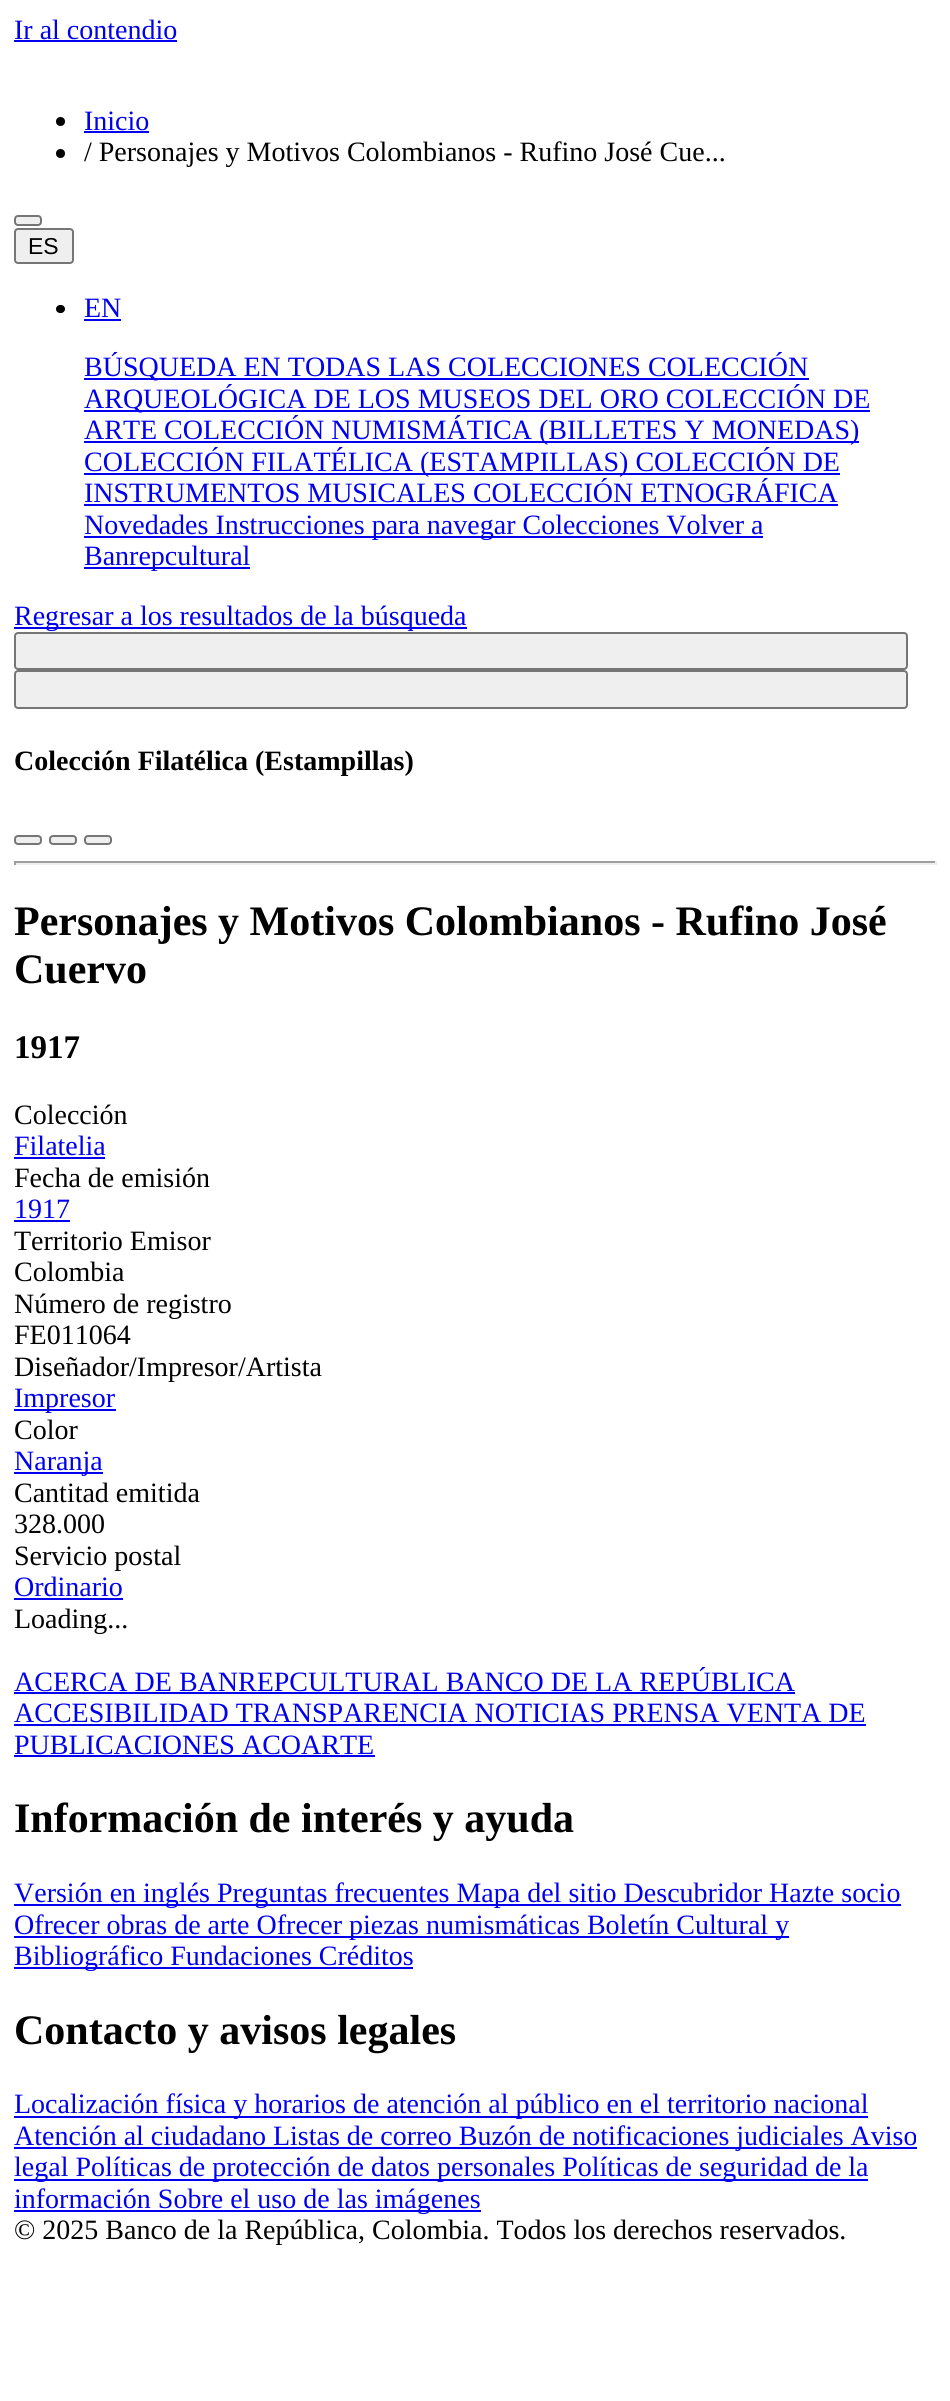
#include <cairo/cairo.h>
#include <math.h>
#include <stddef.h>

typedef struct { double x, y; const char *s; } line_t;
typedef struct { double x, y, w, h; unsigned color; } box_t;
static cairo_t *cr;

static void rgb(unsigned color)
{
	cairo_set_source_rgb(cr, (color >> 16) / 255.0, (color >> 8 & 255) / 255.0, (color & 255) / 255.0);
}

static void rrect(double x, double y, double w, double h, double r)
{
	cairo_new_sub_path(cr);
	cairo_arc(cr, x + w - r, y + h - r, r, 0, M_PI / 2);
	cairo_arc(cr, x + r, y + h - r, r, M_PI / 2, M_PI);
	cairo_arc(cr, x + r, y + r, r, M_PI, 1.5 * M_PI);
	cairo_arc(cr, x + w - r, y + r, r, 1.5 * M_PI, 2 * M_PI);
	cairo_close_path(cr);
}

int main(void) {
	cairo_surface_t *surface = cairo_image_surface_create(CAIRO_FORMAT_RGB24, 950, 2401);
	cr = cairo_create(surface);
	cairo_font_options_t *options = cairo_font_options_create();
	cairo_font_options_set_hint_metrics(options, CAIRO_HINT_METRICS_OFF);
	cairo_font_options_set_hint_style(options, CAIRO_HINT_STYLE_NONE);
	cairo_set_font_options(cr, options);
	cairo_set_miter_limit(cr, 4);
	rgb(0xffffff);
	cairo_paint(cr);
	rgb(0x0000ee);
	cairo_rectangle(cr, 14, 40, 163, 2);
	cairo_fill(cr);
	rgb(0x000000);
	cairo_arc(cr, 60.5, 121.5, 4.5, 0, 2 * M_PI);
	cairo_fill(cr);
	rgb(0x0000ee);
	cairo_rectangle(cr, 84, 131, 65, 2);
	cairo_fill(cr);
	rgb(0x000000);
	cairo_arc(cr, 60.5, 153.5, 4.5, 0, 2 * M_PI);
	cairo_fill(cr);
	rgb(0xefefef);
	rrect(15, 216, 26, 9, 3);
	cairo_fill_preserve(cr);
	rgb(0x767676);
	cairo_stroke(cr);
	rgb(0xefefef);
	rrect(15, 229, 58, 34, 3);
	cairo_fill_preserve(cr);
	rgb(0x767676);
	cairo_stroke(cr);
	rgb(0x000000);
	rrect(56, 305, 9, 8, 4);
	cairo_fill(cr);
	{
		static const box_t items[] = {
			{84, 319, 37, 2, 0x0000ee},
			{84, 378, 725, 2, 0x0000ee},
			{84, 410, 786, 2, 0x0000ee},
			{84, 441, 775, 2, 0x0000ee},
			{84, 473, 756, 2, 0x0000ee},
			{84, 504, 754, 2, 0x0000ee},
			{84, 536, 679, 2, 0x0000ee},
			{84, 567, 166, 2, 0x0000ee},
			{14, 627, 453, 2, 0x0000ee},
		};
		for (size_t i = 0; i < sizeof items / sizeof *items; i++) {
			rgb(items[i].color);
			cairo_rectangle(cr, items[i].x, items[i].y, items[i].w, items[i].h);
			cairo_fill(cr);
		}
	}
	rgb(0xefefef);
	rrect(15, 633, 892, 36, 3);
	cairo_fill_preserve(cr);
	rgb(0x767676);
	cairo_stroke(cr);
	rgb(0xefefef);
	rrect(15, 671, 892, 37, 3);
	cairo_fill_preserve(cr);
	rgb(0x767676);
	cairo_stroke(cr);
	rgb(0xefefef);
	rrect(15, 836, 26, 8, 3);
	cairo_fill_preserve(cr);
	rgb(0x767676);
	cairo_stroke(cr);
	rgb(0xefefef);
	rrect(50, 836, 26, 8, 3);
	cairo_fill_preserve(cr);
	rgb(0x767676);
	cairo_stroke(cr);
	rgb(0xefefef);
	rrect(85, 836, 26, 8, 3);
	cairo_fill_preserve(cr);
	rgb(0x767676);
	cairo_stroke(cr);
	{
		static const box_t items[] = {
			{14, 861, 922, 2, 0x9f9f9f},
			{935, 861, 2, 4, 0xeeeeee},
			{14, 863, 922, 2, 0xeeeeee},
			{14, 861, 2, 4, 0x9f9f9f},
			{14, 1157, 91, 2, 0x0000ee},
			{14, 1220, 56, 2, 0x0000ee},
			{14, 1409, 102, 2, 0x0000ee},
			{14, 1472, 89, 2, 0x0000ee},
			{14, 1598, 109, 2, 0x0000ee},
			{14, 1692, 781, 2, 0x0000ee},
			{14, 1724, 852, 2, 0x0000ee},
			{14, 1755, 361, 2, 0x0000ee},
			{14, 1904, 887, 2, 0x0000ee},
			{14, 1936, 775, 2, 0x0000ee},
			{14, 1967, 399, 2, 0x0000ee},
			{14, 2116, 854, 2, 0x0000ee},
			{14, 2147, 903, 2, 0x0000ee},
			{14, 2179, 854, 2, 0x0000ee},
			{14, 2210, 467, 2, 0x0000ee},
		};
		for (size_t i = 0; i < sizeof items / sizeof *items; i++) {
			rgb(items[i].color);
			cairo_rectangle(cr, items[i].x, items[i].y, items[i].w, items[i].h);
			cairo_fill(cr);
		}
	}
	cairo_select_font_face(cr, "Liberation Serif", CAIRO_FONT_SLANT_NORMAL, CAIRO_FONT_WEIGHT_NORMAL);
	cairo_set_font_size(cr, 28);
	cairo_move_to(cr, 14, 39);
	cairo_show_text(cr, "Ir al contendio");
	cairo_move_to(cr, 84, 130);
	cairo_show_text(cr, "Inicio");
	rgb(0x000000);
	cairo_move_to(cr, 84, 161);
	cairo_show_text(cr, "/ Personajes y Motivos Colombianos - Rufino José Cue...");
	cairo_select_font_face(cr, "Liberation Sans", CAIRO_FONT_SLANT_NORMAL, CAIRO_FONT_WEIGHT_NORMAL);
	cairo_set_font_size(cr, 23);
	cairo_move_to(cr, 28, 254);
	cairo_show_text(cr, "ES");
	cairo_select_font_face(cr, "Liberation Serif", CAIRO_FONT_SLANT_NORMAL, CAIRO_FONT_WEIGHT_NORMAL);
	cairo_set_font_size(cr, 28);
	rgb(0x0000ee);
	{
		static const line_t items[] = {
			{84, 317, "EN"},
			{84, 376, "BÚSQUEDA EN TODAS LAS COLECCIONES COLECCIÓN"},
			{84, 408, "ARQUEOLÓGICA DE LOS MUSEOS DEL ORO COLECCIÓN DE"},
			{84, 439, "ARTE COLECCIÓN NUMISMÁTICA (BILLETES Y MONEDAS)"},
			{84, 471, "COLECCIÓN FILATÉLICA (ESTAMPILLAS) COLECCIÓN DE"},
			{84, 502, "INSTRUMENTOS MUSICALES COLECCIÓN ETNOGRÁFICA"},
			{84, 534, "Novedades Instrucciones para navegar Colecciones Volver a"},
			{84, 565, "Banrepcultural"},
			{14, 625, "Regresar a los resultados de la búsqueda"},
		};
		for (size_t i = 0; i < sizeof items / sizeof *items; i++) {
			cairo_move_to(cr, items[i].x, items[i].y);
			cairo_show_text(cr, items[i].s);
		}
	}
	cairo_select_font_face(cr, "Liberation Serif", CAIRO_FONT_SLANT_NORMAL, CAIRO_FONT_WEIGHT_BOLD);
	rgb(0x000000);
	cairo_move_to(cr, 14, 770);
	cairo_show_text(cr, "Colección Filatélica (Estampillas)");
	cairo_set_font_size(cr, 42);
	cairo_move_to(cr, 14, 935);
	cairo_show_text(cr, "Personajes y Motivos Colombianos - Rufino José");
	cairo_move_to(cr, 14, 983);
	cairo_show_text(cr, "Cuervo");
	cairo_set_font_size(cr, 33);
	cairo_move_to(cr, 14, 1058);
	cairo_show_text(cr, "1917");
	cairo_select_font_face(cr, "Liberation Serif", CAIRO_FONT_SLANT_NORMAL, CAIRO_FONT_WEIGHT_NORMAL);
	cairo_set_font_size(cr, 28);
	cairo_move_to(cr, 14, 1124);
	cairo_show_text(cr, "Colección");
	rgb(0x0000ee);
	cairo_move_to(cr, 14, 1155);
	cairo_show_text(cr, "Filatelia");
	rgb(0x000000);
	cairo_move_to(cr, 14, 1187);
	cairo_show_text(cr, "Fecha de emisión");
	rgb(0x0000ee);
	cairo_move_to(cr, 14, 1218);
	cairo_show_text(cr, "1917");
	rgb(0x000000);
	{
		static const line_t items[] = {
			{14, 1250, "Territorio Emisor"},
			{14, 1281, "Colombia"},
			{14, 1313, "Número de registro"},
			{14, 1344, "FE011064"},
			{14, 1376, "Diseñador/Impresor/Artista"},
		};
		for (size_t i = 0; i < sizeof items / sizeof *items; i++) {
			cairo_move_to(cr, items[i].x, items[i].y);
			cairo_show_text(cr, items[i].s);
		}
	}
	rgb(0x0000ee);
	cairo_move_to(cr, 14, 1407);
	cairo_show_text(cr, "Impresor");
	rgb(0x000000);
	cairo_move_to(cr, 14, 1439);
	cairo_show_text(cr, "Color");
	rgb(0x0000ee);
	cairo_move_to(cr, 14, 1470);
	cairo_show_text(cr, "Naranja");
	rgb(0x000000);
	{
		static const line_t items[] = {
			{14, 1502, "Cantitad emitida"},
			{14, 1533, "328.000"},
			{14, 1565, "Servicio postal"},
		};
		for (size_t i = 0; i < sizeof items / sizeof *items; i++) {
			cairo_move_to(cr, items[i].x, items[i].y);
			cairo_show_text(cr, items[i].s);
		}
	}
	rgb(0x0000ee);
	cairo_move_to(cr, 14, 1596);
	cairo_show_text(cr, "Ordinario");
	rgb(0x000000);
	cairo_move_to(cr, 14, 1628);
	cairo_show_text(cr, "Loading...");
	rgb(0x0000ee);
	{
		static const line_t items[] = {
			{14, 1691, "ACERCA DE BANREPCULTURAL BANCO DE LA REPÚBLICA"},
			{14, 1722, "ACCESIBILIDAD TRANSPARENCIA NOTICIAS PRENSA VENTA DE"},
			{14, 1754, "PUBLICACIONES ACOARTE"},
		};
		for (size_t i = 0; i < sizeof items / sizeof *items; i++) {
			cairo_move_to(cr, items[i].x, items[i].y);
			cairo_show_text(cr, items[i].s);
		}
	}
	cairo_select_font_face(cr, "Liberation Serif", CAIRO_FONT_SLANT_NORMAL, CAIRO_FONT_WEIGHT_BOLD);
	cairo_set_font_size(cr, 42);
	rgb(0x000000);
	cairo_move_to(cr, 14, 1832);
	cairo_show_text(cr, "Información de interés y ayuda");
	cairo_select_font_face(cr, "Liberation Serif", CAIRO_FONT_SLANT_NORMAL, CAIRO_FONT_WEIGHT_NORMAL);
	cairo_set_font_size(cr, 28);
	rgb(0x0000ee);
	{
		static const line_t items[] = {
			{14, 1902, "Versión en inglés Preguntas frecuentes Mapa del sitio Descubridor Hazte socio"},
			{14, 1934, "Ofrecer obras de arte Ofrecer piezas numismáticas Boletín Cultural y"},
			{14, 1965, "Bibliográfico Fundaciones Créditos"},
		};
		for (size_t i = 0; i < sizeof items / sizeof *items; i++) {
			cairo_move_to(cr, items[i].x, items[i].y);
			cairo_show_text(cr, items[i].s);
		}
	}
	cairo_select_font_face(cr, "Liberation Serif", CAIRO_FONT_SLANT_NORMAL, CAIRO_FONT_WEIGHT_BOLD);
	cairo_set_font_size(cr, 42);
	rgb(0x000000);
	cairo_move_to(cr, 14, 2044);
	cairo_show_text(cr, "Contacto y avisos legales");
	cairo_select_font_face(cr, "Liberation Serif", CAIRO_FONT_SLANT_NORMAL, CAIRO_FONT_WEIGHT_NORMAL);
	cairo_set_font_size(cr, 28);
	rgb(0x0000ee);
	{
		static const line_t items[] = {
			{14, 2113, "Localización física y horarios de atención al público en el territorio nacional"},
			{14, 2145, "Atención al ciudadano Listas de correo Buzón de notificaciones judiciales Aviso"},
			{14, 2176, "legal Políticas de protección de datos personales Políticas de seguridad de la"},
			{14, 2208, "información Sobre el uso de las imágenes"},
		};
		for (size_t i = 0; i < sizeof items / sizeof *items; i++) {
			cairo_move_to(cr, items[i].x, items[i].y);
			cairo_show_text(cr, items[i].s);
		}
	}
	rgb(0x000000);
	cairo_move_to(cr, 14, 2239);
	cairo_show_text(cr, "© 2025 Banco de la República, Colombia. Todos los derechos reservados.");
	cairo_surface_write_to_png(surface, "page.png");
	cairo_font_options_destroy(options);
	cairo_destroy(cr);
	cairo_surface_destroy(surface);
	return 0;
}
